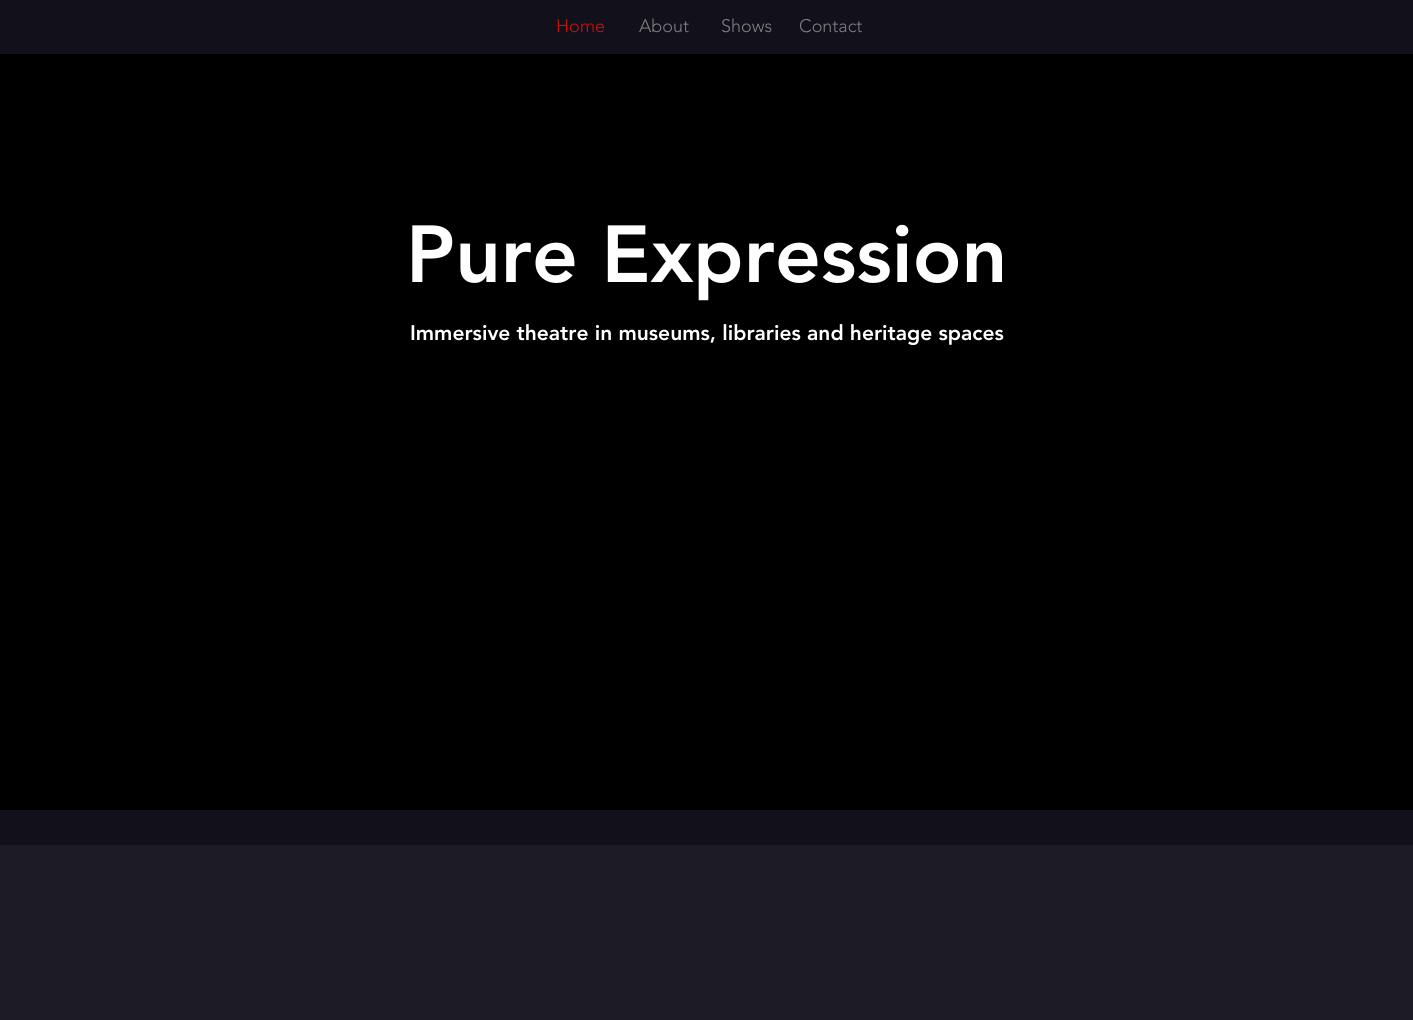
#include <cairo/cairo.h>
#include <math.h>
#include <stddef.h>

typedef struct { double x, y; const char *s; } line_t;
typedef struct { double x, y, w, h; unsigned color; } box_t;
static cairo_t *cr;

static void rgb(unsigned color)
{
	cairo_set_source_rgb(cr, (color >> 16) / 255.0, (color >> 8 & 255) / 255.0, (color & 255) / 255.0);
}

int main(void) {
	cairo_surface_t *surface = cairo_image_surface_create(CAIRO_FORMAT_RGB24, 1413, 1020);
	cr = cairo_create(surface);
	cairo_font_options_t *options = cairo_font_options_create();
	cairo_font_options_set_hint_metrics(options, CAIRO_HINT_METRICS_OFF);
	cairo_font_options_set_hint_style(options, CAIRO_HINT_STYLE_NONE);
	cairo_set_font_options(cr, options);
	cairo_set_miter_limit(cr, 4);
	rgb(0x1d1b26);
	cairo_paint(cr);
	{
		static const box_t items[] = {
			{0, 0, 1413, 54, 0x12101b},
			{0, 54, 1413, 756, 0x000000},
			{0, 810, 1413, 35, 0x12101b},
		};
		for (size_t i = 0; i < sizeof items / sizeof *items; i++) {
			rgb(items[i].color);
			cairo_rectangle(cr, items[i].x, items[i].y, items[i].w, items[i].h);
			cairo_fill(cr);
		}
	}
	cairo_select_font_face(cr, "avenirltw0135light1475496 Light", CAIRO_FONT_SLANT_NORMAL, CAIRO_FONT_WEIGHT_NORMAL);
	cairo_set_font_size(cr, 18);
	rgb(0xd10d0d);
	cairo_move_to(cr, 556, 32);
	cairo_show_text(cr, "Home");
	rgb(0x808080);
	{
		static const line_t items[] = {
			{639, 32, "About"},
			{721, 32, "Shows"},
			{799, 32, "Contact"},
		};
		for (size_t i = 0; i < sizeof items / sizeof *items; i++) {
			cairo_move_to(cr, items[i].x, items[i].y);
			cairo_show_text(cr, items[i].s);
		}
	}
	cairo_select_font_face(cr, "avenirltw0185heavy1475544 Black", CAIRO_FONT_SLANT_NORMAL, CAIRO_FONT_WEIGHT_NORMAL);
	cairo_set_font_size(cr, 80);
	rgb(0xffffff);
	cairo_move_to(cr, 406, 282);
	cairo_show_text(cr, "Pure Expression");
	cairo_set_font_size(cr, 21);
	cairo_move_to(cr, 410, 340);
	cairo_show_text(cr, "Immersive theatre in museums, libraries and heritage spaces");
	cairo_surface_write_to_png(surface, "page.png");
	cairo_font_options_destroy(options);
	cairo_destroy(cr);
	cairo_surface_destroy(surface);
	return 0;
}
